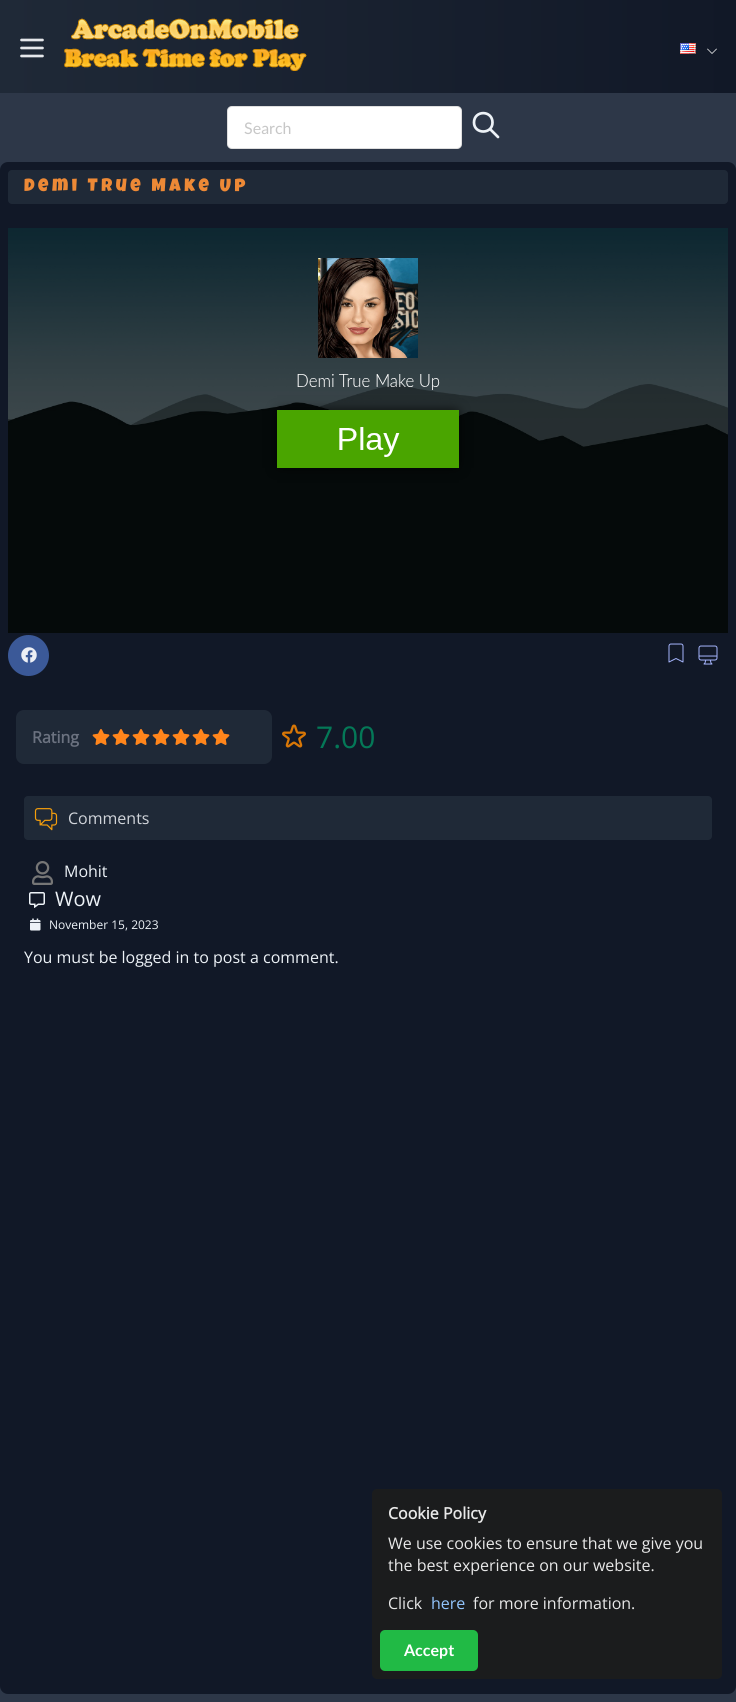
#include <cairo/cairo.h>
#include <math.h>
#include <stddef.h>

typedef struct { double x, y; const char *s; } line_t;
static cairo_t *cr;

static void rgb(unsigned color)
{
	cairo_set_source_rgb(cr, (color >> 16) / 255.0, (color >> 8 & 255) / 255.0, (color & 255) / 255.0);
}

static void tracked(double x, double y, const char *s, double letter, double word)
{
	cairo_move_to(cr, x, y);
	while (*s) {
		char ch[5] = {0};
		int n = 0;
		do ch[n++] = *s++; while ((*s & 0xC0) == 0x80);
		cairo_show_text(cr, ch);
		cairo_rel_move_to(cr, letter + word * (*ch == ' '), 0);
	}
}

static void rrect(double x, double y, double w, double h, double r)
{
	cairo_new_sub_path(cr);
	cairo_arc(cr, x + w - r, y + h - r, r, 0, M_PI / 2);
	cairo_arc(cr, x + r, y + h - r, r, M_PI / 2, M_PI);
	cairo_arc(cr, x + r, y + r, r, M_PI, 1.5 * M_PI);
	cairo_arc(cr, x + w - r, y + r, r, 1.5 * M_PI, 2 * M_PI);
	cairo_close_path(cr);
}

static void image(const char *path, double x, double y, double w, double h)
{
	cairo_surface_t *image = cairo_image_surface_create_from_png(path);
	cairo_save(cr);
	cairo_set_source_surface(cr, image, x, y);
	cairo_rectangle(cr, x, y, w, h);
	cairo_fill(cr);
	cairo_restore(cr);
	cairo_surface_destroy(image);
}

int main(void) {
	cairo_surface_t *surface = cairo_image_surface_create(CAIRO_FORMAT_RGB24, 736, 1702);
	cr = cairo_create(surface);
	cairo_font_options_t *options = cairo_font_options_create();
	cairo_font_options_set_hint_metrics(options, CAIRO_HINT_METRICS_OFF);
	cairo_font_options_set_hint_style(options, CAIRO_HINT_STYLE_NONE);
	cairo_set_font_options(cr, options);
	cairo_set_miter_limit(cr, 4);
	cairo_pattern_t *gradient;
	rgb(0x2d3748);
	cairo_paint(cr);
	gradient = cairo_pattern_create_linear(0, 47, 736, 46);
	cairo_pattern_add_color_stop_rgba(gradient, 0, 0.122, 0.161, 0.216, 1);
	cairo_pattern_add_color_stop_rgba(gradient, 1, 0.067, 0.094, 0.153, 1);
	cairo_set_source(cr, gradient);
	cairo_pattern_destroy(gradient);
	cairo_rectangle(cr, 0, 0, 736, 93);
	cairo_fill(cr);
	cairo_new_path(cr);
	cairo_move_to(cr, 21.5, 40);
	cairo_line_to(cr, 42.5, 40);
	cairo_move_to(cr, 21.5, 48);
	cairo_line_to(cr, 42.5, 48);
	cairo_move_to(cr, 21.5, 56);
	cairo_line_to(cr, 42.5, 56);
	rgb(0xe5e7eb);
	cairo_set_line_width(cr, 2.7);
	cairo_set_line_cap(cr, CAIRO_LINE_CAP_ROUND);
	cairo_set_line_join(cr, CAIRO_LINE_JOIN_ROUND);
	cairo_stroke(cr);
	image("img/1.png", 64, 18, 243, 53);
	image("img/2.png", 680, 43, 16, 11);
	cairo_new_path(cr);
	cairo_move_to(cr, 716.5, 49);
	cairo_line_to(cr, 712, 53.5);
	cairo_line_to(cr, 707.5, 49);
	rgb(0xffffff);
	cairo_set_line_width(cr, 0.7);
	cairo_stroke(cr);
	rrect(227, 106, 235, 43, 5);
	cairo_fill(cr);
	rrect(227.5, 106.5, 234, 42, 4.5);
	cairo_set_source_rgba(cr, 0.133, 0.141, 0.149, 0.15);
	cairo_set_line_width(cr, 1);
	cairo_set_line_cap(cr, CAIRO_LINE_CAP_BUTT);
	cairo_set_line_join(cr, CAIRO_LINE_JOIN_MITER);
	cairo_stroke(cr);
	cairo_new_path(cr);
	cairo_move_to(cr, 498, 137);
	cairo_line_to(cr, 490, 129);
	cairo_move_to(cr, 492.5, 122.5);
	cairo_curve_to(cr, 492.5, 134.5, 474, 134.5, 474, 122.5);
	cairo_curve_to(cr, 474, 110, 492.5, 110, 492.5, 122.5);
	cairo_close_path(cr);
	rgb(0xedf2f7);
	cairo_set_line_width(cr, 2.7);
	cairo_set_line_cap(cr, CAIRO_LINE_CAP_ROUND);
	cairo_set_line_join(cr, CAIRO_LINE_JOIN_ROUND);
	cairo_stroke(cr);
	rgb(0x111827);
	rrect(0, 162, 736, 1532, 8);
	cairo_fill(cr);
	rgb(0x1f2937);
	rrect(8, 170, 720, 34, 4);
	cairo_fill(cr);
	image("img/3.png", 8, 228, 720, 405);
	rgb(0x3b5998);
	cairo_arc(cr, 28.5, 655.5, 20.5, 0, 2 * M_PI);
	cairo_fill(cr);
	image("img/4.png", 21, 647, 16, 16);
	image("img/5.png", 668, 643, 16, 20);
	image("img/6.png", 698, 645, 20, 20);
	rgb(0x1f2937);
	rrect(16, 710, 256, 54, 8);
	cairo_fill(cr);
	image("img/7.png", 92, 729, 18, 16);
	image("img/7.png", 112, 729, 18, 16);
	image("img/7.png", 132, 729, 18, 16);
	image("img/7.png", 152, 729, 18, 16);
	image("img/7.png", 172, 729, 18, 16);
	image("img/7.png", 192, 729, 18, 16);
	image("img/7.png", 212, 729, 18, 16);
	image("img/8.png", 282, 724, 24, 24);
	rrect(24, 796, 688, 44, 4);
	cairo_fill(cr);
	image("img/9.png", 34, 808, 24, 23);
	image("img/10.png", 32, 861, 21, 24);
	image("img/11.png", 29, 892, 16, 16);
	image("img/12.png", 30, 918, 11, 13);
	rgb(0x1b1c1d);
	rrect(372, 1489, 350, 190, 5);
	cairo_fill(cr);
	rgb(0x21ba45);
	rrect(380, 1630, 98, 41, 5);
	cairo_fill(cr);
	cairo_select_font_face(cr, "Lato", CAIRO_FONT_SLANT_NORMAL, CAIRO_FONT_WEIGHT_NORMAL);
	cairo_set_font_size(cr, 16);
	rgb(0xc7c7c7);
	cairo_move_to(cr, 244, 134);
	cairo_show_text(cr, "Search");
	cairo_select_font_face(cr, "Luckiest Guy", CAIRO_FONT_SLANT_NORMAL, CAIRO_FONT_WEIGHT_NORMAL);
	cairo_set_font_size(cr, 18);
	rgb(0xed8936);
	tracked(24, 191, "Demi True Make Up", 3.6, 0);
	cairo_select_font_face(cr, "Open Sans", CAIRO_FONT_SLANT_NORMAL, CAIRO_FONT_WEIGHT_BOLD);
	cairo_set_font_size(cr, 16);
	rgb(0x6b7280);
	cairo_move_to(cr, 32, 743);
	cairo_show_text(cr, "Rating");
	cairo_select_font_face(cr, "Open Sans", CAIRO_FONT_SLANT_NORMAL, CAIRO_FONT_WEIGHT_NORMAL);
	cairo_set_font_size(cr, 30);
	rgb(0x047857);
	cairo_move_to(cr, 316, 748);
	cairo_show_text(cr, "7.00");
	cairo_set_font_size(cr, 16);
	rgb(0xd1d5db);
	cairo_move_to(cr, 68, 824);
	cairo_show_text(cr, "Comments");
	rgb(0xedf2f7);
	cairo_move_to(cr, 64, 877);
	cairo_show_text(cr, "Mohit");
	cairo_set_font_size(cr, 20);
	cairo_move_to(cr, 55, 906);
	cairo_show_text(cr, "Wow");
	cairo_set_font_size(cr, 12);
	cairo_move_to(cr, 49, 929);
	cairo_show_text(cr, "November 15, 2023");
	cairo_set_font_size(cr, 16);
	cairo_move_to(cr, 24, 963);
	cairo_show_text(cr, "You must be logged in to post a comment.");
	cairo_select_font_face(cr, "Open Sans", CAIRO_FONT_SLANT_NORMAL, CAIRO_FONT_WEIGHT_BOLD);
	rgb(0xe8e8e8);
	cairo_move_to(cr, 388, 1519);
	cairo_show_text(cr, "Cookie Policy");
	cairo_select_font_face(cr, "Open Sans", CAIRO_FONT_SLANT_NORMAL, CAIRO_FONT_WEIGHT_NORMAL);
	{
		static const line_t items[] = {
			{388, 1549, "We use cookies to ensure that we give you"},
			{388, 1571, "the best experience on our website."},
			{388, 1609, "Click"},
		};
		for (size_t i = 0; i < sizeof items / sizeof *items; i++) {
			cairo_move_to(cr, items[i].x, items[i].y);
			cairo_show_text(cr, items[i].s);
		}
	}
	rgb(0x93c5fd);
	cairo_move_to(cr, 431, 1609);
	cairo_show_text(cr, "here");
	rgb(0xe8e8e8);
	cairo_move_to(cr, 473, 1609);
	cairo_show_text(cr, "for more information.");
	cairo_select_font_face(cr, "Lato", CAIRO_FONT_SLANT_NORMAL, CAIRO_FONT_WEIGHT_BOLD);
	rgb(0xffffff);
	cairo_move_to(cr, 404, 1656);
	cairo_show_text(cr, "Accept");
	cairo_surface_write_to_png(surface, "page.png");
	cairo_font_options_destroy(options);
	cairo_destroy(cr);
	cairo_surface_destroy(surface);
	return 0;
}
